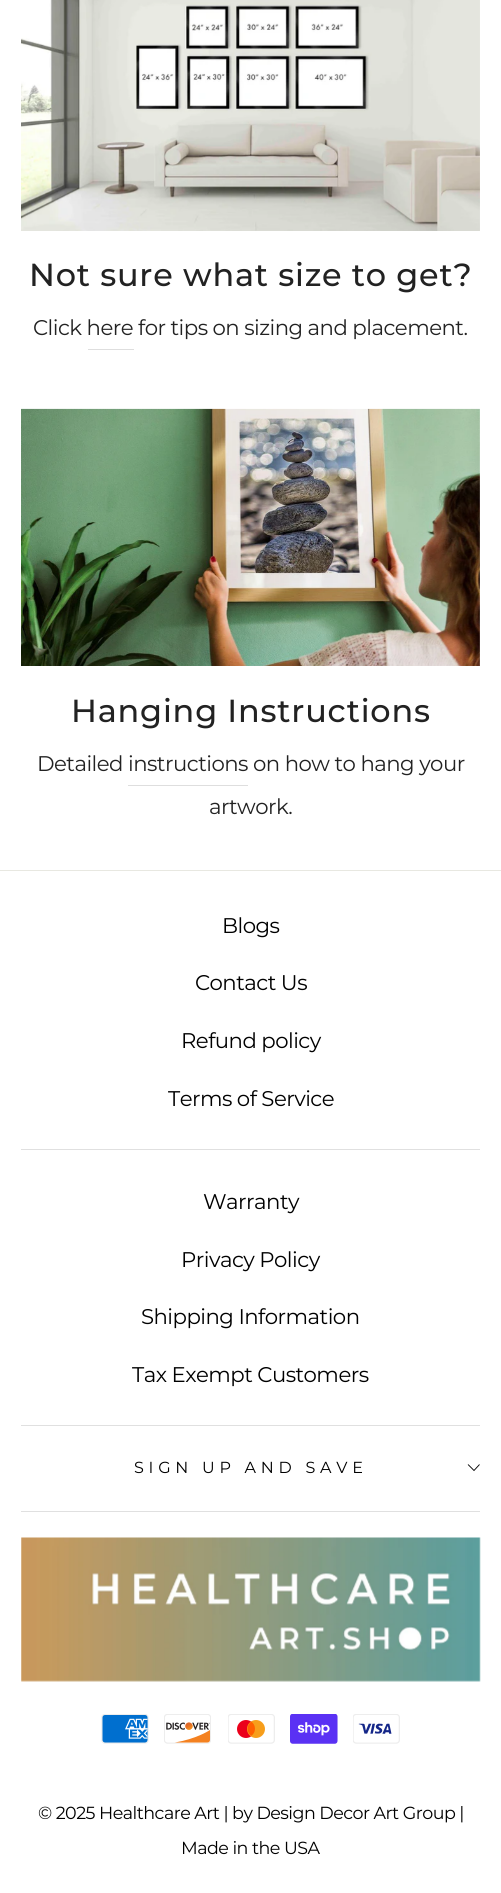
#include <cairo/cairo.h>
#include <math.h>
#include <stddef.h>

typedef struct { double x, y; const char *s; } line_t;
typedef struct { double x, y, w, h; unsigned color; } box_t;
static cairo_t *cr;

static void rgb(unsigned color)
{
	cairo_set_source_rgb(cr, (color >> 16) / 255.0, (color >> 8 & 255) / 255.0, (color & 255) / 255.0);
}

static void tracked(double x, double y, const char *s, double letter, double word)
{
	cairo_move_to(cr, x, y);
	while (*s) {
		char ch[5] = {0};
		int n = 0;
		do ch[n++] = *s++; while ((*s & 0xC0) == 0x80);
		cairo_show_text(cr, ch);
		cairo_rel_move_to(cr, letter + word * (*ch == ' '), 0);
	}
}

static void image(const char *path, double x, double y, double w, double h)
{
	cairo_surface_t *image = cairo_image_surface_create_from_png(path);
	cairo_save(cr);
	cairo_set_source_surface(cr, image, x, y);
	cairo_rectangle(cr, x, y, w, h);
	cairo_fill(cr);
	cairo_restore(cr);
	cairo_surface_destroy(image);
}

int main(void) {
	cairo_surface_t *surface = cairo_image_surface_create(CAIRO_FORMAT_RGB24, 501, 1893);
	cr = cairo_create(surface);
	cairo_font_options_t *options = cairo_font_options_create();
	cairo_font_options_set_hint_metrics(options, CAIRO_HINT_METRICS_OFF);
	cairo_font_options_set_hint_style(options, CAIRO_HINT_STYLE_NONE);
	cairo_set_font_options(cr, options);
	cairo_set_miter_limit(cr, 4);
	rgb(0xffffff);
	cairo_paint(cr);
	image("img/1.png", 21, 0, 459, 231);
	rgb(0xdedede);
	cairo_rectangle(cr, 88, 349, 46, 1);
	cairo_fill(cr);
	image("img/2.png", 21, 408, 459, 258);
	{
		static const box_t items[] = {
			{128, 785, 120, 1, 0xdedede},
			{0, 870, 501, 1, 0xe8e8e1},
			{21, 1149, 459, 1, 0xe0e0e0},
			{21, 1425, 459, 1, 0xe0e0e0},
		};
		for (size_t i = 0; i < sizeof items / sizeof *items; i++) {
			rgb(items[i].color);
			cairo_rectangle(cr, items[i].x, items[i].y, items[i].w, items[i].h);
			cairo_fill(cr);
		}
	}
	cairo_new_path(cr);
	cairo_move_to(cr, 468, 1464.5);
	cairo_line_to(cr, 474, 1470.5);
	cairo_line_to(cr, 479.5, 1464.5);
	rgb(0x000000);
	cairo_set_line_width(cr, 0.9);
	cairo_stroke(cr);
	rgb(0xe0e0e0);
	cairo_rectangle(cr, 21, 1511, 459, 1);
	cairo_fill(cr);
	image("img/3.png", 21, 1537, 460, 145);
	image("img/4.png", 101, 1714, 48, 30);
	image("img/5.png", 164, 1714, 47, 30);
	image("img/6.png", 228, 1714, 47, 30);
	image("img/7.png", 290, 1714, 48, 30);
	image("img/8.png", 353, 1714, 47, 30);
	cairo_select_font_face(cr, "Montserrat Medium", CAIRO_FONT_SLANT_NORMAL, CAIRO_FONT_WEIGHT_NORMAL);
	cairo_set_font_size(cr, 31.9);
	rgb(0x222222);
	tracked(29, 286, "Not sure what size to get?", 0.8, 0);
	cairo_select_font_face(cr, "Montserrat", CAIRO_FONT_SLANT_NORMAL, CAIRO_FONT_WEIGHT_NORMAL);
	cairo_set_font_size(cr, 21.25);
	tracked(33, 335, "Click here", -0.53, 0);
	tracked(138, 335, "for tips on sizing and placement.", -0.53, 0);
	cairo_select_font_face(cr, "Montserrat Medium", CAIRO_FONT_SLANT_NORMAL, CAIRO_FONT_WEIGHT_NORMAL);
	cairo_set_font_size(cr, 31.9);
	tracked(71, 722, "Hanging Instructions", 0.8, 0);
	cairo_select_font_face(cr, "Montserrat", CAIRO_FONT_SLANT_NORMAL, CAIRO_FONT_WEIGHT_NORMAL);
	cairo_set_font_size(cr, 21.25);
	{
		static const line_t items[] = {
			{37, 771, "Detailed instructions"},
			{253, 771, "on how to hang your"},
			{209, 814, "artwork."},
		};
		for (size_t i = 0; i < sizeof items / sizeof *items; i++) {
			tracked(items[i].x, items[i].y, items[i].s, -0.53, 0);
		}
	}
	rgb(0x000000);
	{
		static const line_t items[] = {
			{222, 933, "Blogs"},
			{195, 990, "Contact Us"},
			{181, 1048, "Refund policy"},
			{168, 1106, "Terms of Service"},
			{203, 1209, "Warranty"},
			{181, 1267, "Privacy Policy"},
			{141, 1324, "Shipping Information"},
			{132, 1382, "Tax Exempt Customers"},
		};
		for (size_t i = 0; i < sizeof items / sizeof *items; i++) {
			tracked(items[i].x, items[i].y, items[i].s, -0.53, 0);
		}
	}
	cairo_set_font_size(cr, 16);
	tracked(134, 1473, "SIGN UP AND SAVE", 4.75, 0);
	cairo_set_font_size(cr, 17.5);
	tracked(38, 1819, "© 2025 Healthcare Art | by Design Decor Art Group |", -0.53, 0);
	tracked(181, 1854, "Made in the USA", -0.53, 0);
	cairo_surface_write_to_png(surface, "page.png");
	cairo_font_options_destroy(options);
	cairo_destroy(cr);
	cairo_surface_destroy(surface);
	return 0;
}
